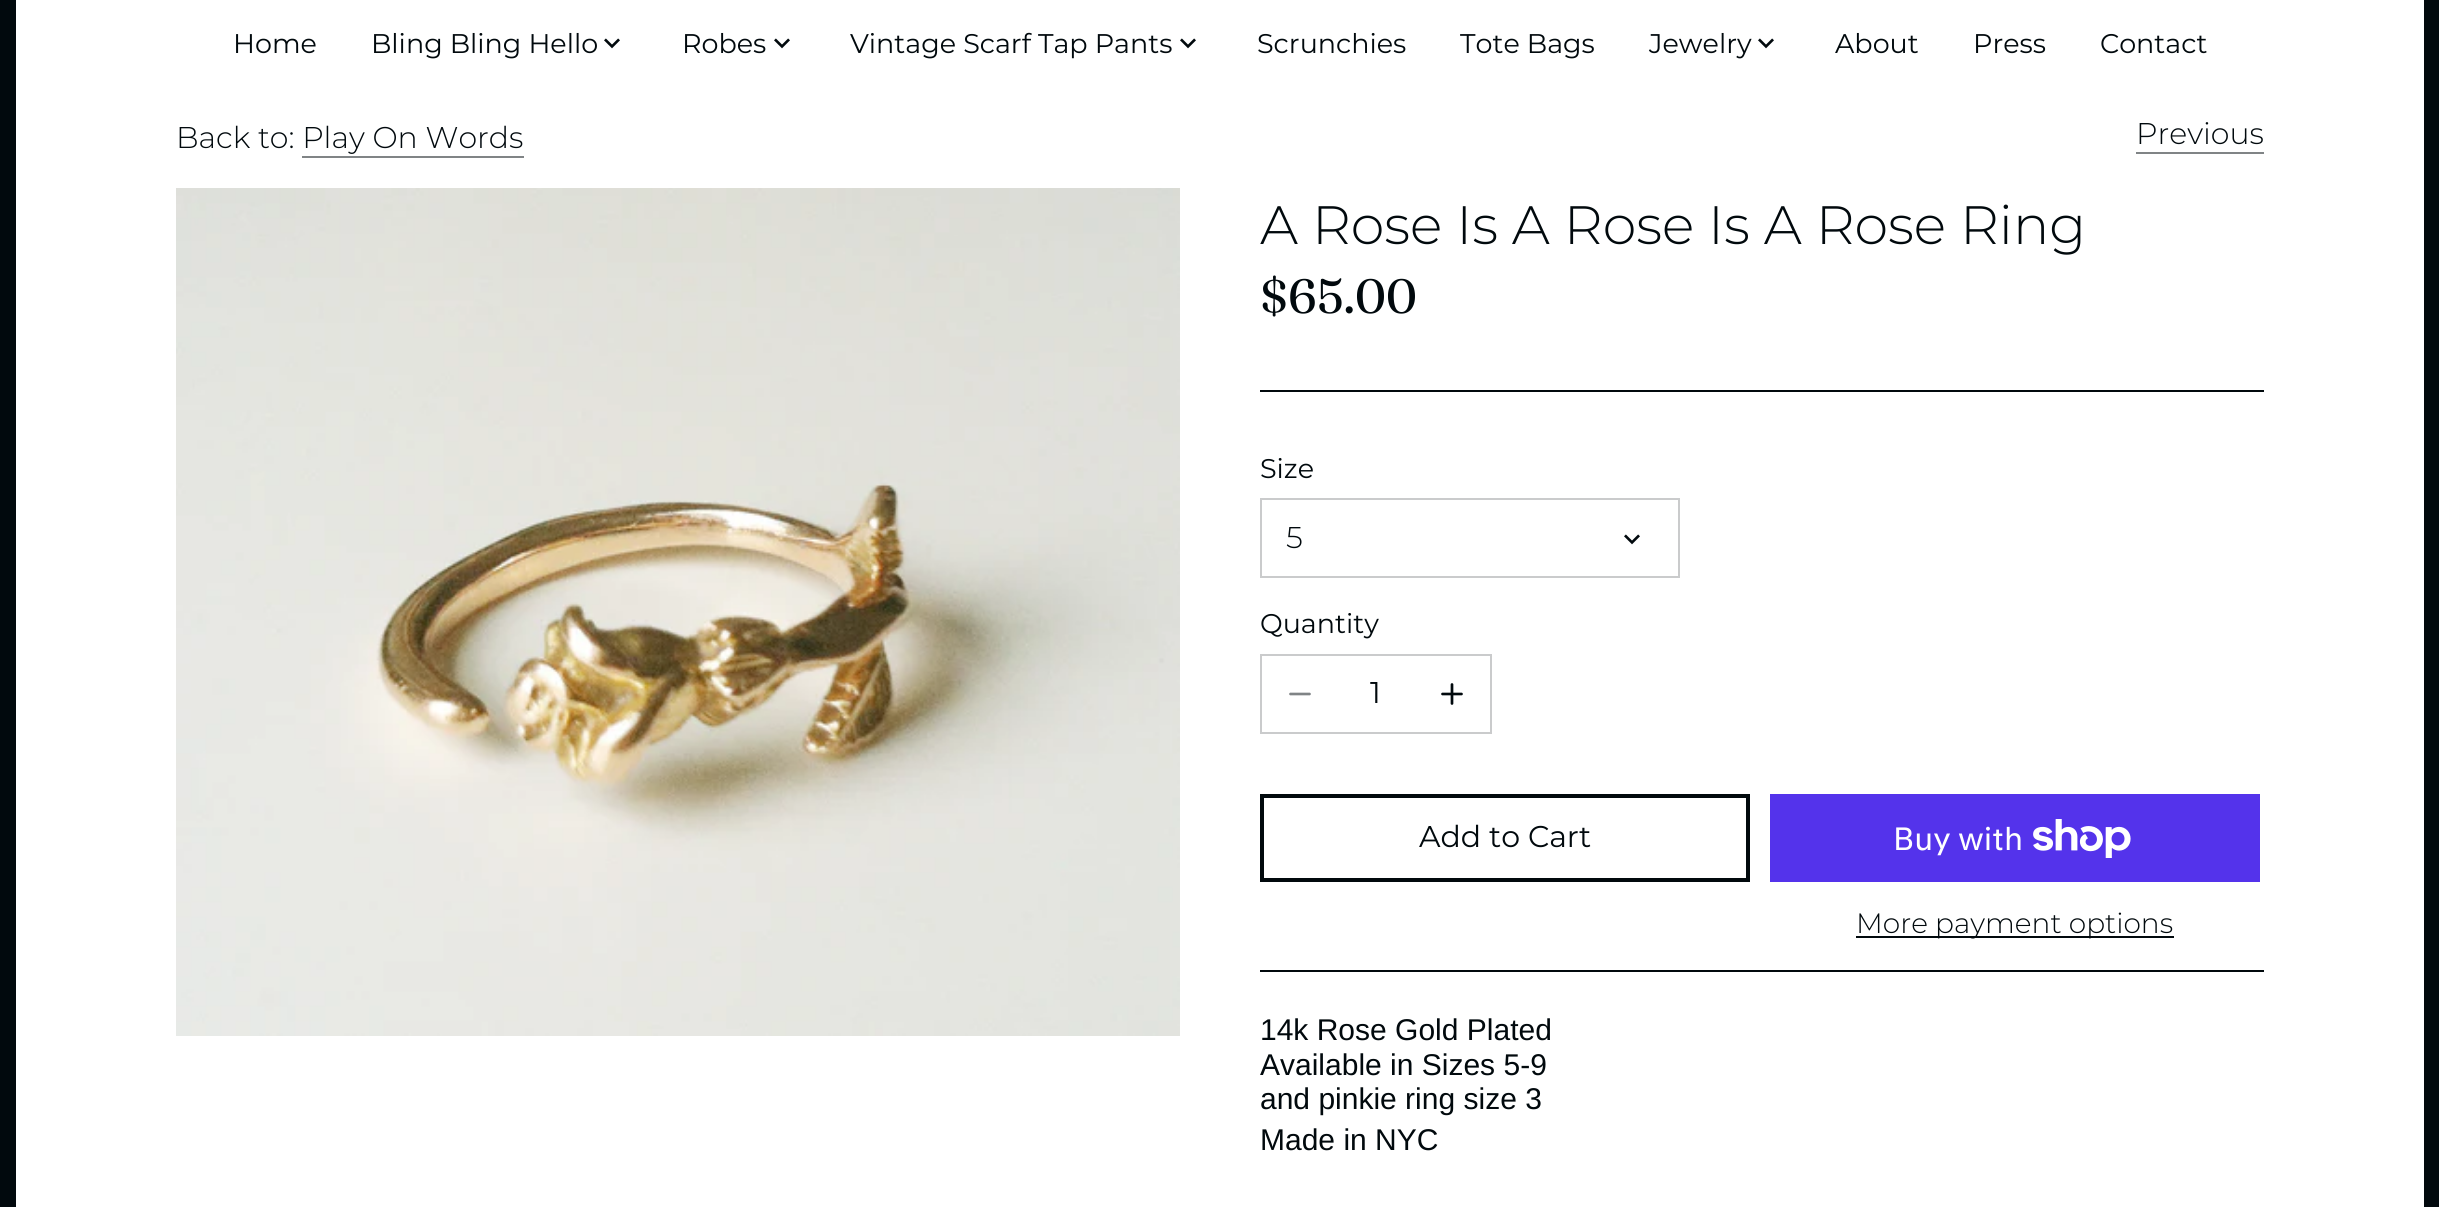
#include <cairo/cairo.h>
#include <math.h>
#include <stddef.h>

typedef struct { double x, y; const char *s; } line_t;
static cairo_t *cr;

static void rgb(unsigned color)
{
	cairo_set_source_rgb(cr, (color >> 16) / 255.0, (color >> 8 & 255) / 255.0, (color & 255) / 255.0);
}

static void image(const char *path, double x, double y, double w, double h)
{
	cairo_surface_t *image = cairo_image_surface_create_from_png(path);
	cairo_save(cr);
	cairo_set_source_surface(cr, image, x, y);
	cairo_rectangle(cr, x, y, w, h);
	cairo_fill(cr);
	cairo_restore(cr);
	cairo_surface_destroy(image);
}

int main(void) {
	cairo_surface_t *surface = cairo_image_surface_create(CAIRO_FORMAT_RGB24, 2439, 1207);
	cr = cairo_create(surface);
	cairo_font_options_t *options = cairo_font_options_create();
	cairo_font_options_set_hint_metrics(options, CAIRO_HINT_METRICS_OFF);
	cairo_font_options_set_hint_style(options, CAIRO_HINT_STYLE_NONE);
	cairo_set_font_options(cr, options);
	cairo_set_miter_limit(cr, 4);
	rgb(0xffffff);
	cairo_paint(cr);
	cairo_rectangle(cr, 8, -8, 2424, 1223);
	rgb(0x01090d);
	cairo_set_line_width(cr, 16);
	cairo_stroke(cr);
	image("img/1.png", 604, 38, 16, 11);
	image("img/1.png", 774, 38, 16, 11);
	image("img/1.png", 1180, 38, 16, 11);
	image("img/1.png", 1758, 38, 16, 11);
	rgb(0x808486);
	cairo_rectangle(cr, 302, 156, 222, 2);
	cairo_fill(cr);
	cairo_rectangle(cr, 2136, 152, 128, 2);
	cairo_fill(cr);
	image("img/2.png", 176, 188, 1004, 848);
	rgb(0x01090d);
	cairo_rectangle(cr, 1260, 390, 1004, 2);
	cairo_fill(cr);
	cairo_rectangle(cr, 1260, 970, 1004, 2);
	cairo_fill(cr);
	cairo_rectangle(cr, 1261, 499, 418, 78);
	rgb(0xcacbcc);
	cairo_set_line_width(cr, 2);
	cairo_stroke(cr);
	image("img/1.png", 1624, 534, 16, 11);
	cairo_rectangle(cr, 1261, 655, 230, 78);
	cairo_stroke(cr);
	cairo_new_path(cr);
	cairo_move_to(cr, 1290.5, 694);
	cairo_line_to(cr, 1309.5, 694);
	rgb(0x808486);
	cairo_set_line_width(cr, 2.7);
	cairo_set_line_cap(cr, CAIRO_LINE_CAP_ROUND);
	cairo_set_line_join(cr, CAIRO_LINE_JOIN_ROUND);
	cairo_stroke(cr);
	cairo_new_path(cr);
	cairo_move_to(cr, 1452, 684.5);
	cairo_line_to(cr, 1452, 703.5);
	cairo_move_to(cr, 1442.5, 694);
	cairo_line_to(cr, 1461.5, 694);
	rgb(0x01090d);
	cairo_stroke(cr);
	cairo_rectangle(cr, 1262, 796, 486, 84);
	cairo_set_line_width(cr, 4);
	cairo_set_line_cap(cr, CAIRO_LINE_CAP_BUTT);
	cairo_set_line_join(cr, CAIRO_LINE_JOIN_MITER);
	cairo_stroke(cr);
	rgb(0x5433eb);
	cairo_rectangle(cr, 1770, 794, 490, 88);
	cairo_fill(cr);
	image("img/3.png", 2033, 819, 98, 39);
	rgb(0x01090d);
	cairo_rectangle(cr, 1856, 936, 318, 2);
	cairo_fill(cr);
	cairo_select_font_face(cr, "Montserrat", CAIRO_FONT_SLANT_NORMAL, CAIRO_FONT_WEIGHT_NORMAL);
	cairo_set_font_size(cr, 27);
	{
		static const line_t items[] = {
			{233, 53, "Home"},
			{371, 53, "Bling Bling Hello"},
			{682, 53, "Robes"},
			{850, 53, "Vintage Scarf Tap Pants"},
			{1257, 53, "Scrunchies"},
			{1460, 53, "Tote Bags"},
			{1649, 53, "Jewelry"},
			{1835, 53, "About"},
			{1973, 53, "Press"},
			{2100, 53, "Contact"},
		};
		for (size_t i = 0; i < sizeof items / sizeof *items; i++) {
			cairo_move_to(cr, items[i].x, items[i].y);
			cairo_show_text(cr, items[i].s);
		}
	}
	cairo_select_font_face(cr, "Montserrat Light", CAIRO_FONT_SLANT_NORMAL, CAIRO_FONT_WEIGHT_NORMAL);
	cairo_set_font_size(cr, 30);
	cairo_move_to(cr, 176, 148);
	cairo_show_text(cr, "Back to: Play On Words");
	cairo_move_to(cr, 2136, 144);
	cairo_show_text(cr, "Previous");
	cairo_set_font_size(cr, 54);
	cairo_move_to(cr, 1260, 244);
	cairo_show_text(cr, "A Rose Is A Rose Is A Rose Ring");
	cairo_select_font_face(cr, "Fraunces", CAIRO_FONT_SLANT_NORMAL, CAIRO_FONT_WEIGHT_NORMAL);
	cairo_set_font_size(cr, 48);
	cairo_move_to(cr, 1260, 313);
	cairo_show_text(cr, "$65.00");
	cairo_select_font_face(cr, "Montserrat", CAIRO_FONT_SLANT_NORMAL, CAIRO_FONT_WEIGHT_NORMAL);
	cairo_set_font_size(cr, 27);
	cairo_move_to(cr, 1260, 478);
	cairo_show_text(cr, "Size");
	cairo_select_font_face(cr, "Montserrat Light", CAIRO_FONT_SLANT_NORMAL, CAIRO_FONT_WEIGHT_NORMAL);
	cairo_set_font_size(cr, 30);
	cairo_move_to(cr, 1286, 548);
	cairo_show_text(cr, "5");
	cairo_select_font_face(cr, "Montserrat", CAIRO_FONT_SLANT_NORMAL, CAIRO_FONT_WEIGHT_NORMAL);
	cairo_set_font_size(cr, 27);
	cairo_move_to(cr, 1260, 633);
	cairo_show_text(cr, "Quantity");
	cairo_set_font_size(cr, 30);
	cairo_move_to(cr, 1370, 703);
	cairo_show_text(cr, "1");
	cairo_move_to(cr, 1419, 847);
	cairo_show_text(cr, "Add to Cart");
	cairo_select_font_face(cr, "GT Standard", CAIRO_FONT_SLANT_NORMAL, CAIRO_FONT_WEIGHT_NORMAL);
	cairo_set_font_size(cr, 32);
	rgb(0xffffff);
	cairo_move_to(cr, 1893, 850);
	cairo_show_text(cr, "Buy with");
	cairo_select_font_face(cr, "Montserrat Light", CAIRO_FONT_SLANT_NORMAL, CAIRO_FONT_WEIGHT_NORMAL);
	cairo_set_font_size(cr, 28);
	rgb(0x01090d);
	cairo_move_to(cr, 1856, 933);
	cairo_show_text(cr, "More payment options");
	cairo_select_font_face(cr, "Liberation Sans", CAIRO_FONT_SLANT_NORMAL, CAIRO_FONT_WEIGHT_NORMAL);
	cairo_set_font_size(cr, 30);
	{
		static const line_t items[] = {
			{1260, 1040, "14k Rose Gold Plated"},
			{1260, 1075, "Available in Sizes 5-9"},
			{1260, 1109, "and pinkie ring size 3"},
			{1260, 1150, "Made in NYC"},
		};
		for (size_t i = 0; i < sizeof items / sizeof *items; i++) {
			cairo_move_to(cr, items[i].x, items[i].y);
			cairo_show_text(cr, items[i].s);
		}
	}
	cairo_surface_write_to_png(surface, "page.png");
	cairo_font_options_destroy(options);
	cairo_destroy(cr);
	cairo_surface_destroy(surface);
	return 0;
}
